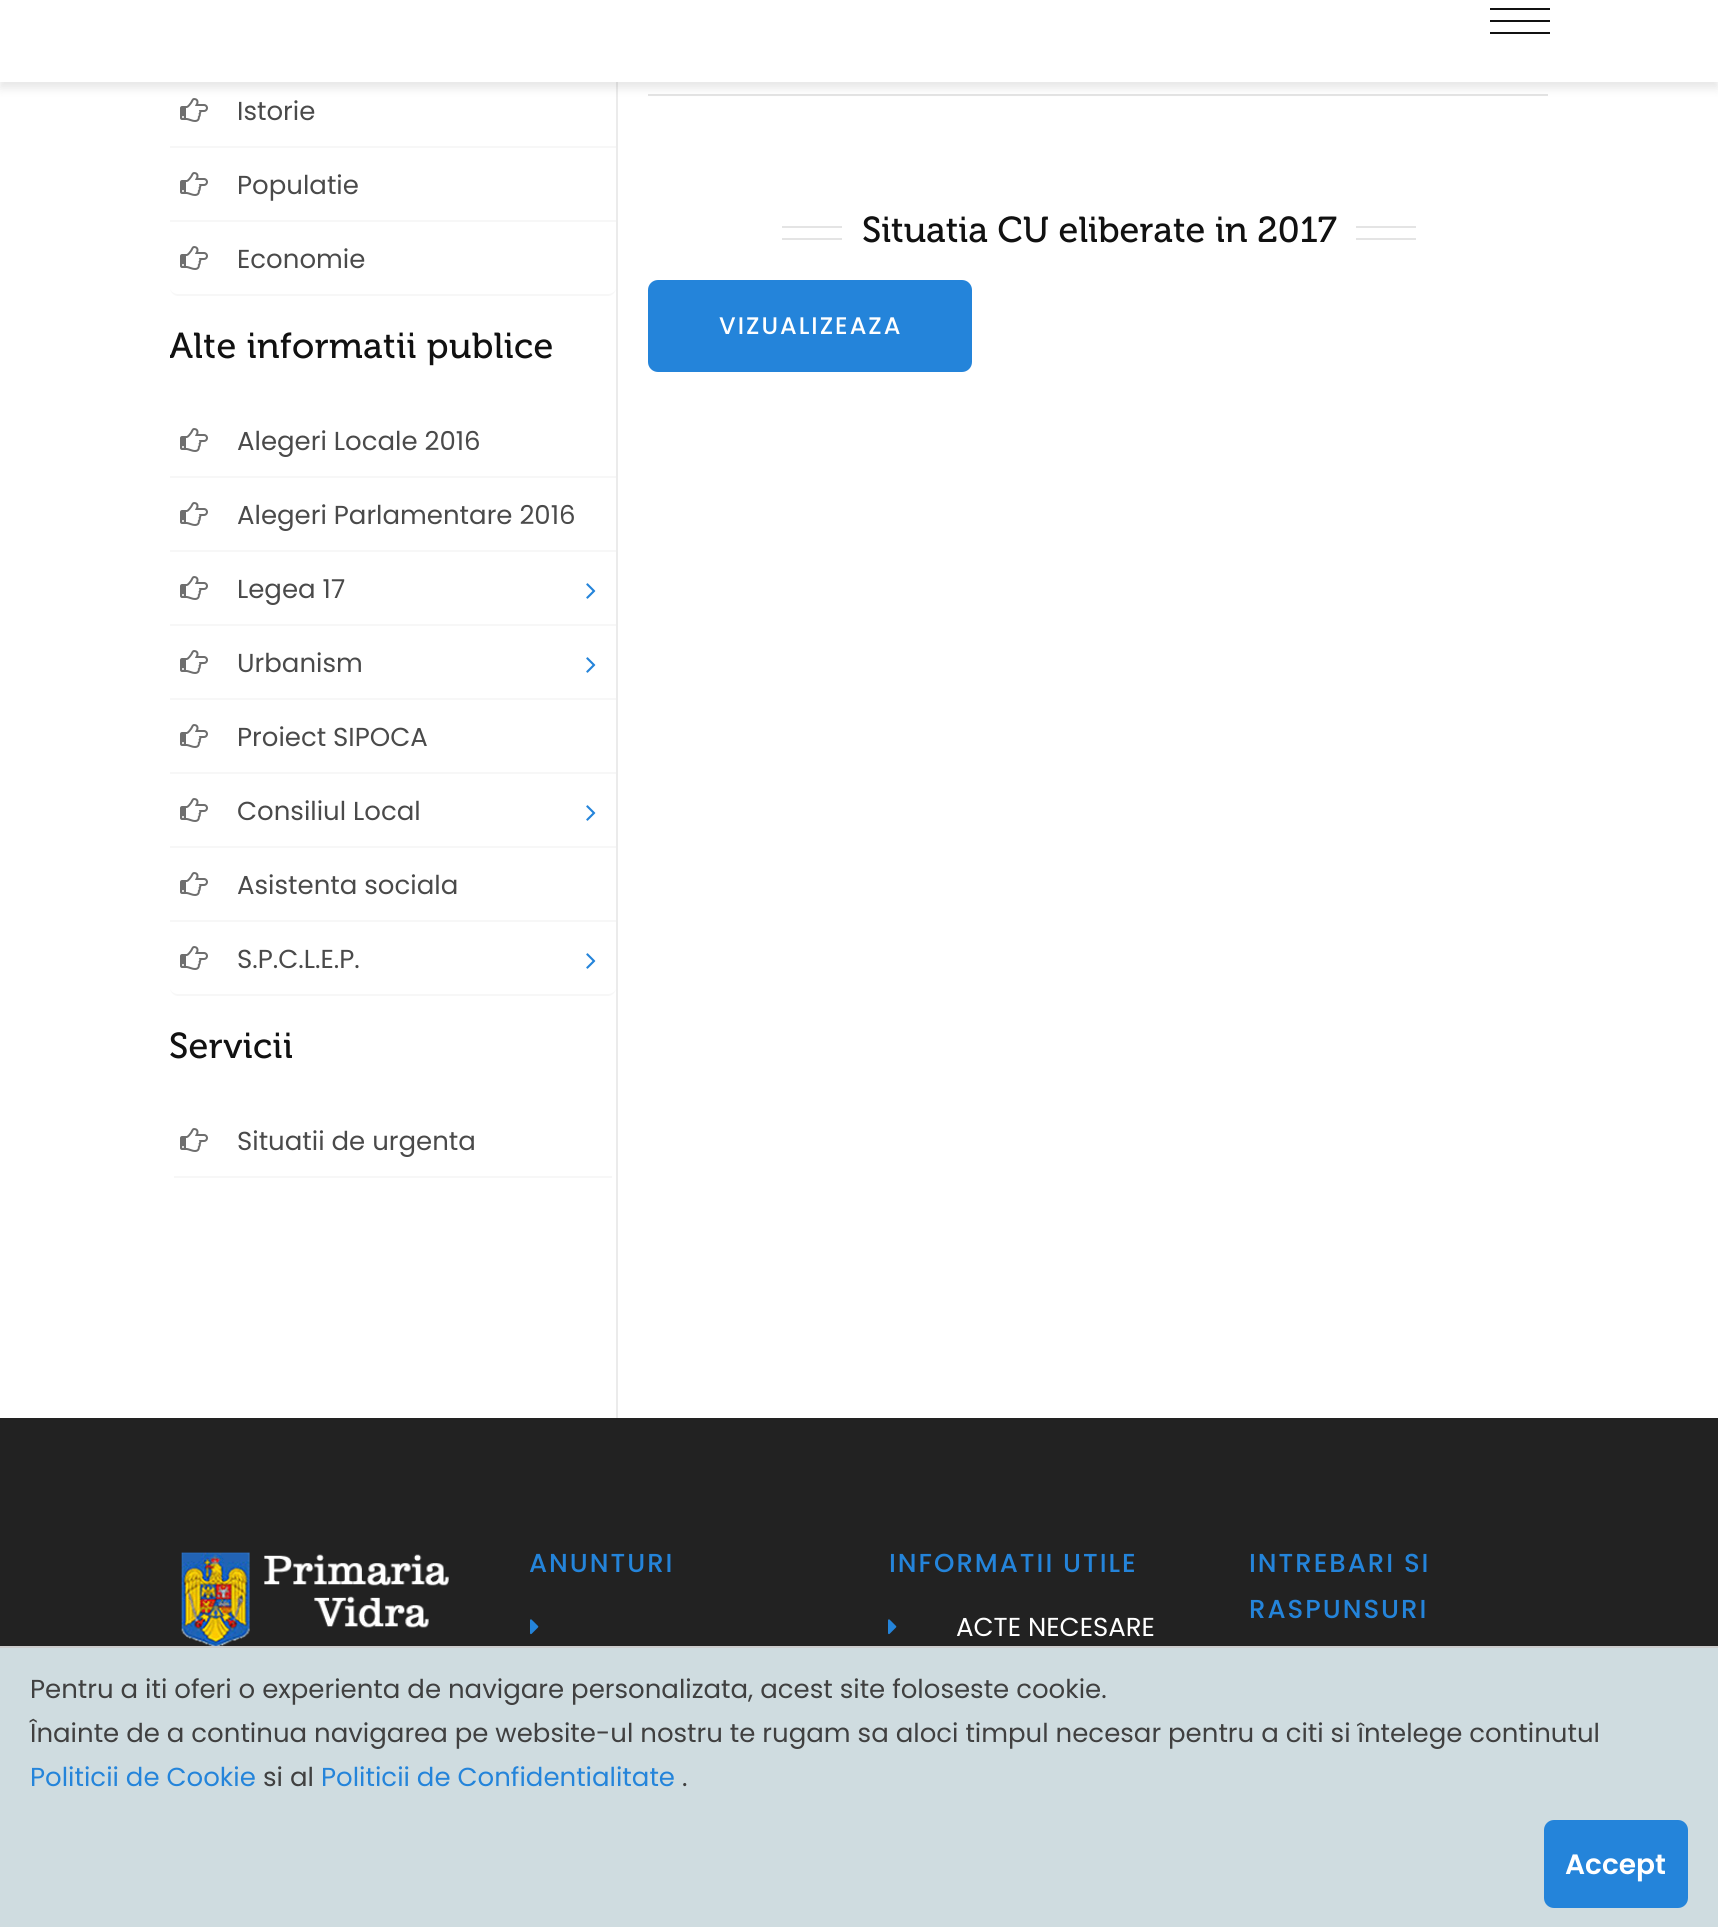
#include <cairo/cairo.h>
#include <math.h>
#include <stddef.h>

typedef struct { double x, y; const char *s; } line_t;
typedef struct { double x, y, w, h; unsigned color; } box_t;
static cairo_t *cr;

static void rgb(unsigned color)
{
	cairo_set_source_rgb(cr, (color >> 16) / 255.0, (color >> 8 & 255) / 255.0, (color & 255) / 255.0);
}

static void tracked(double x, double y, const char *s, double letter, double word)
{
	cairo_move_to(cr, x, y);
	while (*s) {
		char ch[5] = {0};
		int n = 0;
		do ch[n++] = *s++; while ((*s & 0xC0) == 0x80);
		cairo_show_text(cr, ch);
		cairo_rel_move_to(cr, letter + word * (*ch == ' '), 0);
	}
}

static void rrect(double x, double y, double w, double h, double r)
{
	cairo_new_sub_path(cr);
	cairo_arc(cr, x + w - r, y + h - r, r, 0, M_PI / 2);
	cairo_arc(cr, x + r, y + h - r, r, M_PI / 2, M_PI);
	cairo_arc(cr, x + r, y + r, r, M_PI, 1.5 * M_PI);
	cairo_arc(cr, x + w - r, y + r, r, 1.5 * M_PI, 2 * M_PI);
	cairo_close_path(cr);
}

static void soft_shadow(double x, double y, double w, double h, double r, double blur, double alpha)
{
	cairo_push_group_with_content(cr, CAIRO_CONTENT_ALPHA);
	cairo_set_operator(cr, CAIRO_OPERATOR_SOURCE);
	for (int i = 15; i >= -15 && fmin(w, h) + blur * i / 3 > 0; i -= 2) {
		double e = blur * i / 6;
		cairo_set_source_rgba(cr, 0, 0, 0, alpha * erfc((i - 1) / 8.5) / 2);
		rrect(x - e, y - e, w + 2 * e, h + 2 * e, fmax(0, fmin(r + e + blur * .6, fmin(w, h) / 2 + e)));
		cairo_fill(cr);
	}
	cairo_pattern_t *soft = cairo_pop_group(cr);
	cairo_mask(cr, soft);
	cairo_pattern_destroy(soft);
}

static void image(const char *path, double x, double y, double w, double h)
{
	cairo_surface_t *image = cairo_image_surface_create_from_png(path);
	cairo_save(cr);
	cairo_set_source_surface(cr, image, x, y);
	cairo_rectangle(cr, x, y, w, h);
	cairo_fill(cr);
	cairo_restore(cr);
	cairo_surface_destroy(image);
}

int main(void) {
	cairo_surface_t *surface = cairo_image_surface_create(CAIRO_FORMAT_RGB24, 1718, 1927);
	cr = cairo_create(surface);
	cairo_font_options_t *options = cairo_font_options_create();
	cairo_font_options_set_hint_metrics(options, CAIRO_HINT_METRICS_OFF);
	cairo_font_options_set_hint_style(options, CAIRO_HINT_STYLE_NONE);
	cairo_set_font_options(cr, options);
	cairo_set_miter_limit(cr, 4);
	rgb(0xffffff);
	cairo_paint(cr);
	rgb(0xebebeb);
	cairo_rectangle(cr, 616, 82, 2, 1336);
	cairo_fill(cr);
	image("img/1.png", 180, 98, 28, 24);
	rgb(0xe4e4e4);
	cairo_rectangle(cr, 648, 94, 900, 2);
	cairo_fill(cr);
	rgb(0x000000);
	soft_shadow(0, -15, 1718, 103, 0, 5, 0.1);
	{
		static const box_t items[] = {
			{0, 0, 1718, 82, 0xffffff},
			{1490, 8, 60, 2, 0x111111},
			{1490, 20, 60, 2, 0x111111},
			{1490, 32, 60, 2, 0x111111},
			{170, 146, 446, 2, 0xf7f7f7},
			{170, 220, 446, 2, 0xf7f7f7},
		};
		for (size_t i = 0; i < sizeof items / sizeof *items; i++) {
			rgb(items[i].color);
			cairo_rectangle(cr, items[i].x, items[i].y, items[i].w, items[i].h);
			cairo_fill(cr);
		}
	}
	image("img/1.png", 180, 172, 28, 24);
	cairo_new_path(cr);
	cairo_move_to(cr, 178, 296);
	cairo_line_to(cr, 608, 296);
	cairo_curve_to(cr, 612, 296, 616, 292, 616, 288);
	cairo_curve_to(cr, 616, 291, 612, 294, 608, 294);
	cairo_line_to(cr, 178, 294);
	cairo_curve_to(cr, 174, 294, 170, 291, 170, 288);
	cairo_curve_to(cr, 170, 292, 174, 296, 178, 296);
	cairo_close_path(cr);
	cairo_fill(cr);
	image("img/1.png", 180, 246, 28, 24);
	cairo_rectangle(cr, 170, 476, 446, 2);
	cairo_fill(cr);
	image("img/1.png", 180, 428, 28, 24);
	cairo_rectangle(cr, 170, 550, 446, 2);
	cairo_fill(cr);
	image("img/1.png", 180, 502, 28, 24);
	cairo_rectangle(cr, 170, 624, 446, 2);
	cairo_fill(cr);
	image("img/1.png", 180, 576, 28, 24);
	image("img/2.png", 586, 583, 10, 16);
	cairo_rectangle(cr, 170, 698, 446, 2);
	cairo_fill(cr);
	image("img/1.png", 180, 650, 28, 24);
	image("img/2.png", 586, 657, 10, 16);
	cairo_rectangle(cr, 170, 772, 446, 2);
	cairo_fill(cr);
	image("img/1.png", 180, 724, 28, 24);
	cairo_rectangle(cr, 170, 846, 446, 2);
	cairo_fill(cr);
	image("img/1.png", 180, 798, 28, 24);
	image("img/2.png", 586, 805, 10, 16);
	cairo_rectangle(cr, 170, 920, 446, 2);
	cairo_fill(cr);
	image("img/1.png", 180, 872, 28, 24);
	cairo_new_path(cr);
	cairo_move_to(cr, 178, 996);
	cairo_line_to(cr, 608, 996);
	cairo_curve_to(cr, 612, 996, 616, 992, 616, 988);
	cairo_curve_to(cr, 616, 991, 612, 994, 608, 994);
	cairo_line_to(cr, 178, 994);
	cairo_curve_to(cr, 174, 994, 170, 991, 170, 988);
	cairo_curve_to(cr, 170, 992, 174, 996, 178, 996);
	cairo_close_path(cr);
	cairo_fill(cr);
	image("img/1.png", 180, 946, 28, 24);
	image("img/2.png", 586, 953, 10, 16);
	cairo_rectangle(cr, 174, 1176, 438, 2);
	cairo_fill(cr);
	image("img/1.png", 180, 1128, 28, 24);
	{
		static const box_t items[] = {
			{782, 226, 60, 2, 0xe4e4e4},
			{782, 238, 60, 2, 0xe4e4e4},
			{1356, 226, 60, 2, 0xe4e4e4},
			{1356, 238, 60, 2, 0xe4e4e4},
		};
		for (size_t i = 0; i < sizeof items / sizeof *items; i++) {
			rgb(items[i].color);
			cairo_rectangle(cr, items[i].x, items[i].y, items[i].w, items[i].h);
			cairo_fill(cr);
		}
	}
	rgb(0x2484da);
	rrect(648, 280, 324, 92, 10);
	cairo_fill(cr);
	rgb(0x222222);
	cairo_rectangle(cr, 0, 1418, 1718, 228);
	cairo_fill(cr);
	image("img/3.png", 181, 1552, 268, 94);
	image("img/4.png", 530, 1619, 9, 16);
	image("img/4.png", 888, 1619, 9, 16);
	rgb(0xcfdce0);
	cairo_rectangle(cr, 0, 1648, 1718, 279);
	cairo_fill(cr);
	rgb(0xcccccc);
	cairo_rectangle(cr, 0, 1646, 1718, 2);
	cairo_fill(cr);
	rgb(0x2484da);
	rrect(1545, 1821, 142, 86, 9);
	cairo_fill_preserve(cr);
	cairo_stroke(cr);
	cairo_select_font_face(cr, "Poppins", CAIRO_FONT_SLANT_NORMAL, CAIRO_FONT_WEIGHT_NORMAL);
	cairo_set_font_size(cr, 26);
	rgb(0x4a4a4a);
	{
		static const line_t items[] = {
			{237, 120, "Istorie"},
			{237, 194, "Populatie"},
			{237, 268, "Economie"},
		};
		for (size_t i = 0; i < sizeof items / sizeof *items; i++) {
			cairo_move_to(cr, items[i].x, items[i].y);
			cairo_show_text(cr, items[i].s);
		}
	}
	cairo_save(cr);
	cairo_rectangle(cr, 170, 326, 394, 40);
	cairo_clip(cr);
	cairo_select_font_face(cr, "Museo", CAIRO_FONT_SLANT_NORMAL, CAIRO_FONT_WEIGHT_NORMAL);
	cairo_set_font_size(cr, 36);
	rgb(0x111111);
	tracked(169, 358, "Alte informatii publice", 0.4, 0);
	cairo_restore(cr);
	{
		static const line_t items[] = {
			{237, 450, "Alegeri Locale 2016"},
			{237, 524, "Alegeri Parlamentare 2016"},
			{237, 598, "Legea 17"},
			{237, 672, "Urbanism"},
			{237, 746, "Proiect SIPOCA"},
			{237, 820, "Consiliul Local"},
			{237, 894, "Asistenta sociala"},
			{237, 968, "S.P.C.L.E.P."},
		};
		for (size_t i = 0; i < sizeof items / sizeof *items; i++) {
			cairo_move_to(cr, items[i].x, items[i].y);
			cairo_show_text(cr, items[i].s);
		}
	}
	cairo_select_font_face(cr, "Museo", CAIRO_FONT_SLANT_NORMAL, CAIRO_FONT_WEIGHT_NORMAL);
	cairo_set_font_size(cr, 36);
	rgb(0x111111);
	tracked(169, 1058, "Servicii", 0.4, 0);
	cairo_select_font_face(cr, "Poppins", CAIRO_FONT_SLANT_NORMAL, CAIRO_FONT_WEIGHT_NORMAL);
	cairo_set_font_size(cr, 26);
	rgb(0x4a4a4a);
	cairo_move_to(cr, 237, 1150);
	cairo_show_text(cr, "Situatii de urgenta");
	cairo_select_font_face(cr, "Museo", CAIRO_FONT_SLANT_NORMAL, CAIRO_FONT_WEIGHT_NORMAL);
	cairo_set_font_size(cr, 36);
	rgb(0x111111);
	cairo_move_to(cr, 862, 242);
	cairo_show_text(cr, "Situatia CU eliberate in 2017");
	cairo_select_font_face(cr, "Poppins Medium", CAIRO_FONT_SLANT_NORMAL, CAIRO_FONT_WEIGHT_NORMAL);
	cairo_set_font_size(cr, 24);
	rgb(0xffffff);
	tracked(719, 334, "VIZUALIZEAZA", 2, 0);
	cairo_set_font_size(cr, 26);
	rgb(0x2484da);
	tracked(529, 1572, "ANUNTURI", 2, 0);
	tracked(889, 1572, "INFORMATII UTILE", 2, 0);
	cairo_select_font_face(cr, "Poppins", CAIRO_FONT_SLANT_NORMAL, CAIRO_FONT_WEIGHT_NORMAL);
	rgb(0xffffff);
	cairo_move_to(cr, 956, 1636);
	cairo_show_text(cr, "ACTE NECESARE");
	cairo_select_font_face(cr, "Poppins Medium", CAIRO_FONT_SLANT_NORMAL, CAIRO_FONT_WEIGHT_NORMAL);
	rgb(0x2484da);
	tracked(1249, 1572, "INTREBARI SI", 2, 0);
	tracked(1249, 1618, "RASPUNSURI", 2, 0);
	cairo_select_font_face(cr, "Poppins", CAIRO_FONT_SLANT_NORMAL, CAIRO_FONT_WEIGHT_NORMAL);
	rgb(0x404040);
	cairo_move_to(cr, 30, 1698);
	cairo_show_text(cr, "Pentru a iti oferi o experienta de navigare personalizata, acest site foloseste cookie.");
	cairo_move_to(cr, 30, 1742);
	cairo_show_text(cr, "Înainte de a continua navigarea pe website-ul nostru te rugam sa aloci timpul necesar pentru a citi si întelege continutul");
	rgb(0x2484da);
	cairo_move_to(cr, 30, 1786);
	cairo_show_text(cr, "Politicii de Cookie");
	rgb(0x404040);
	cairo_move_to(cr, 263, 1786);
	cairo_show_text(cr, "si al");
	rgb(0x2484da);
	cairo_move_to(cr, 321, 1786);
	cairo_show_text(cr, "Politicii de Confidentialitate");
	rgb(0x404040);
	cairo_move_to(cr, 682, 1786);
	cairo_show_text(cr, ".");
	cairo_select_font_face(cr, "Poppins SemiBold", CAIRO_FONT_SLANT_NORMAL, CAIRO_FONT_WEIGHT_NORMAL);
	cairo_set_font_size(cr, 28);
	rgb(0xffffff);
	cairo_move_to(cr, 1565, 1874);
	cairo_show_text(cr, "Accept");
	cairo_surface_write_to_png(surface, "page.png");
	cairo_font_options_destroy(options);
	cairo_destroy(cr);
	cairo_surface_destroy(surface);
	return 0;
}
